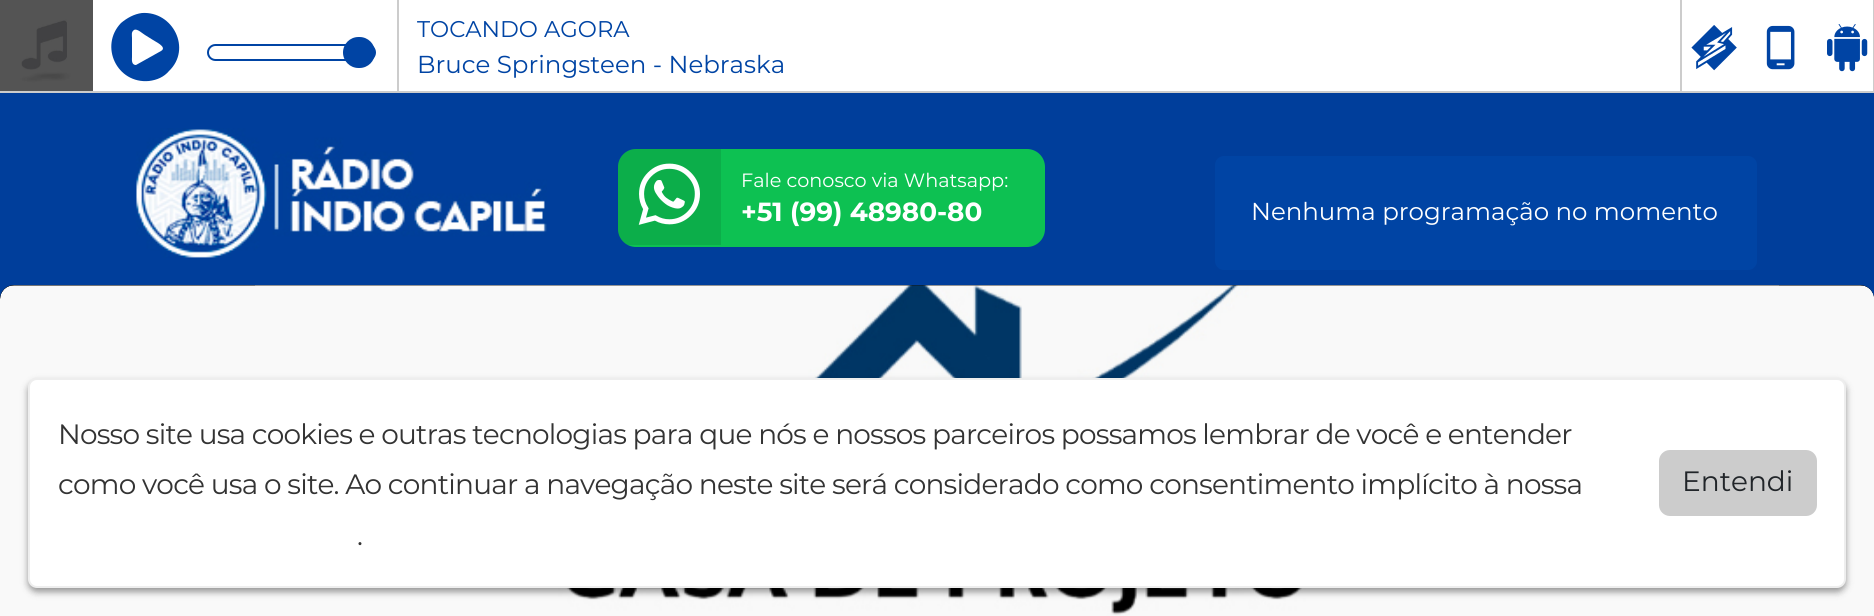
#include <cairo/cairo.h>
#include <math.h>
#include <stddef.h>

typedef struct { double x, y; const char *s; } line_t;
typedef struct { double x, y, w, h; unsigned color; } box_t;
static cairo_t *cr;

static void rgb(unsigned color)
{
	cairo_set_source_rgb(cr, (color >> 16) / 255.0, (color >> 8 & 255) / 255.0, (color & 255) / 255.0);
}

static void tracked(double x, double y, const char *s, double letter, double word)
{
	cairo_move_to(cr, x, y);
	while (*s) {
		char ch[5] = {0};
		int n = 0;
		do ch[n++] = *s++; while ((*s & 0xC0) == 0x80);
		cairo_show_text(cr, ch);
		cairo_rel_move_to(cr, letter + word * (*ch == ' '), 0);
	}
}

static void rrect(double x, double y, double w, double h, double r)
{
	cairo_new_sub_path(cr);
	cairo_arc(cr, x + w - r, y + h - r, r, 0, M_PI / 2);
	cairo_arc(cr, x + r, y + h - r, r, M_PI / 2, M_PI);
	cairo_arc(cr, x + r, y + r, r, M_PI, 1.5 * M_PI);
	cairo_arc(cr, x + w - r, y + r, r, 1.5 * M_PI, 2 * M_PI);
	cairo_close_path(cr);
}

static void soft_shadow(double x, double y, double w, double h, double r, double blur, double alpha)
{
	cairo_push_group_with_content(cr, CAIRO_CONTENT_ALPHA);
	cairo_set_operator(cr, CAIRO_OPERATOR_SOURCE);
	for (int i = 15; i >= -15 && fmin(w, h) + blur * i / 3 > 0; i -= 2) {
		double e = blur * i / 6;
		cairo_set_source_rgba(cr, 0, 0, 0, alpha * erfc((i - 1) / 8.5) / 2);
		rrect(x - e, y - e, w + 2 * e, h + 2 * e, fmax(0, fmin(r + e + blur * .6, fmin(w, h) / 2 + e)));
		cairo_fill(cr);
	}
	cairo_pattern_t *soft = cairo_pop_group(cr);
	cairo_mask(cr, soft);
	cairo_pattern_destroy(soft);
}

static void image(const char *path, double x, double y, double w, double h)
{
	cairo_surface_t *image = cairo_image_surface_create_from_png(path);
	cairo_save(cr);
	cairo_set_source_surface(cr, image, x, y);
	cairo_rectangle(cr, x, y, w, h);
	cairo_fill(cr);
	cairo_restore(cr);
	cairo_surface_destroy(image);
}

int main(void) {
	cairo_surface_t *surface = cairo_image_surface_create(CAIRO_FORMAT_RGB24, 1874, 616);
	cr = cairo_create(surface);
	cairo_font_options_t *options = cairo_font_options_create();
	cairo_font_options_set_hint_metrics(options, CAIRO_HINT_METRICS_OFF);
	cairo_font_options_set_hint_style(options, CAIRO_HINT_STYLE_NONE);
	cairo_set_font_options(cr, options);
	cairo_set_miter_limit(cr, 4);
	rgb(0x003e9b);
	cairo_paint(cr);
	{
		static const box_t items[] = {
			{93, 0, 1780, 91, 0xffffff},
			{0, 91, 1874, 2, 0xcccccc},
			{1873, 0, 1, 91, 0xcccccc},
		};
		for (size_t i = 0; i < sizeof items / sizeof *items; i++) {
			rgb(items[i].color);
			cairo_rectangle(cr, items[i].x, items[i].y, items[i].w, items[i].h);
			cairo_fill(cr);
		}
	}
	image("img/1.png", 0, 0, 93, 91);
	cairo_rectangle(cr, 397, 0, 2, 91);
	cairo_fill(cr);
	rgb(0x0044a4);
	cairo_new_path(cr);
	cairo_move_to(cr, 121, 23);
	cairo_curve_to(cr, 127, 18, 134, 14, 142, 13);
	cairo_curve_to(cr, 173, 11, 192, 49, 169, 71);
	cairo_curve_to(cr, 164, 77, 157, 80, 149, 81);
	cairo_curve_to(cr, 117, 84, 99, 46, 121, 23);
	cairo_close_path(cr);
	cairo_move_to(cr, 161, 51);
	cairo_curve_to(cr, 168, 47, 154, 41, 153, 40);
	cairo_line_to(cr, 145, 35);
	cairo_curve_to(cr, 143, 34, 137, 28, 134, 30);
	cairo_curve_to(cr, 131, 32, 132, 35, 132, 38);
	cairo_line_to(cr, 132, 57);
	cairo_curve_to(cr, 132, 59, 131, 65, 136, 65);
	cairo_close_path(cr);
	cairo_fill(cr);
	rrect(208, 45, 167, 15, 7.5);
	cairo_stroke(cr);
	rrect(343, 37, 32, 31, 15.5);
	cairo_fill(cr);
	cairo_save(cr);
	cairo_rectangle(cr, 0, 0, 1874, 91);
	cairo_clip(cr);
	rgb(0xcccccc);
	cairo_new_path(cr);
	cairo_move_to(cr, 1680, 93);
	cairo_line_to(cr, 1680, 0);
	cairo_line_to(cr, 1682, 0);
	cairo_line_to(cr, 1682, 91);
	cairo_close_path(cr);
	cairo_fill(cr);
	cairo_restore(cr);
	image("img/2.png", 1691, 25, 46, 46);
	image("img/3.png", 1766, 25, 29, 45);
	image("img/4.png", 1827, 24, 41, 48);
	image("img/5.png", 136, 128, 411, 130);
	rgb(0x0dc152);
	rrect(618, 149, 427, 98, 18);
	cairo_fill(cr);
	cairo_save(cr);
	rrect(618, 149, 427, 98, 18);
	cairo_clip(cr);
	cairo_set_source_rgba(cr, 0, 0, 0, 0.1);
	cairo_new_path(cr);
	cairo_move_to(cr, 636, 149);
	cairo_line_to(cr, 721, 149);
	cairo_line_to(cr, 721, 245);
	cairo_line_to(cr, 618, 245);
	cairo_line_to(cr, 618, 167);
	cairo_curve_to(cr, 618, 157, 626, 149, 636, 149);
	cairo_close_path(cr);
	cairo_fill(cr);
	cairo_restore(cr);
	image("img/6.png", 638, 163, 62, 62);
	rgb(0x0044a4);
	rrect(1215, 156, 542, 114, 9);
	cairo_fill(cr);
	rgb(0x151515);
	rrect(0, 285, 1874, 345, 14);
	cairo_fill(cr);
	image("img/7.png", 0, 285, 1874, 331);
	rgb(0x000000);
	soft_shadow(28, 382, 1818, 210, 9, 3.5, 0.4);
	rgb(0xffffff);
	rrect(29, 379, 1816, 208, 8);
	cairo_fill_preserve(cr);
	rgb(0xeeeeee);
	cairo_stroke(cr);
	rgb(0xcccccc);
	rrect(1659, 450, 158, 66, 11);
	cairo_fill(cr);
	cairo_select_font_face(cr, "Montserrat", CAIRO_FONT_SLANT_NORMAL, CAIRO_FONT_WEIGHT_NORMAL);
	cairo_set_font_size(cr, 22.75);
	rgb(0x0044a4);
	cairo_move_to(cr, 417, 37);
	cairo_show_text(cr, "TOCANDO AGORA");
	cairo_set_font_size(cr, 24.5);
	cairo_move_to(cr, 417, 73);
	cairo_show_text(cr, "Bruce Springsteen - Nebraska");
	cairo_set_font_size(cr, 19.25);
	rgb(0xffffff);
	cairo_move_to(cr, 741, 187);
	cairo_show_text(cr, "Fale conosco via Whatsapp:");
	cairo_select_font_face(cr, "Montserrat", CAIRO_FONT_SLANT_NORMAL, CAIRO_FONT_WEIGHT_BOLD);
	cairo_set_font_size(cr, 26.25);
	cairo_move_to(cr, 741, 221);
	cairo_show_text(cr, "+51 (99) 48980-80");
	cairo_select_font_face(cr, "Montserrat", CAIRO_FONT_SLANT_NORMAL, CAIRO_FONT_WEIGHT_NORMAL);
	cairo_set_font_size(cr, 24.5);
	cairo_move_to(cr, 1251, 220);
	cairo_show_text(cr, "Nenhuma programação no momento");
	cairo_set_font_size(cr, 28);
	rgb(0x333333);
	{
		static const line_t items[] = {
			{58, 444, "Nosso site usa cookies e outras tecnologias para que nós e nossos parceiros possamos lembrar de você e entender"},
			{58, 494, "como você usa o site. Ao continuar a navegação neste site será considerado como consentimento implícito à nossa"},
			{357, 545, "."},
		};
		for (size_t i = 0; i < sizeof items / sizeof *items; i++) {
			tracked(items[i].x, items[i].y, items[i].s, -0.79, 0);
		}
	}
	rgb(0x212529);
	cairo_move_to(cr, 1682, 491);
	cairo_show_text(cr, "Entendi");
	cairo_surface_write_to_png(surface, "page.png");
	cairo_font_options_destroy(options);
	cairo_destroy(cr);
	cairo_surface_destroy(surface);
	return 0;
}
